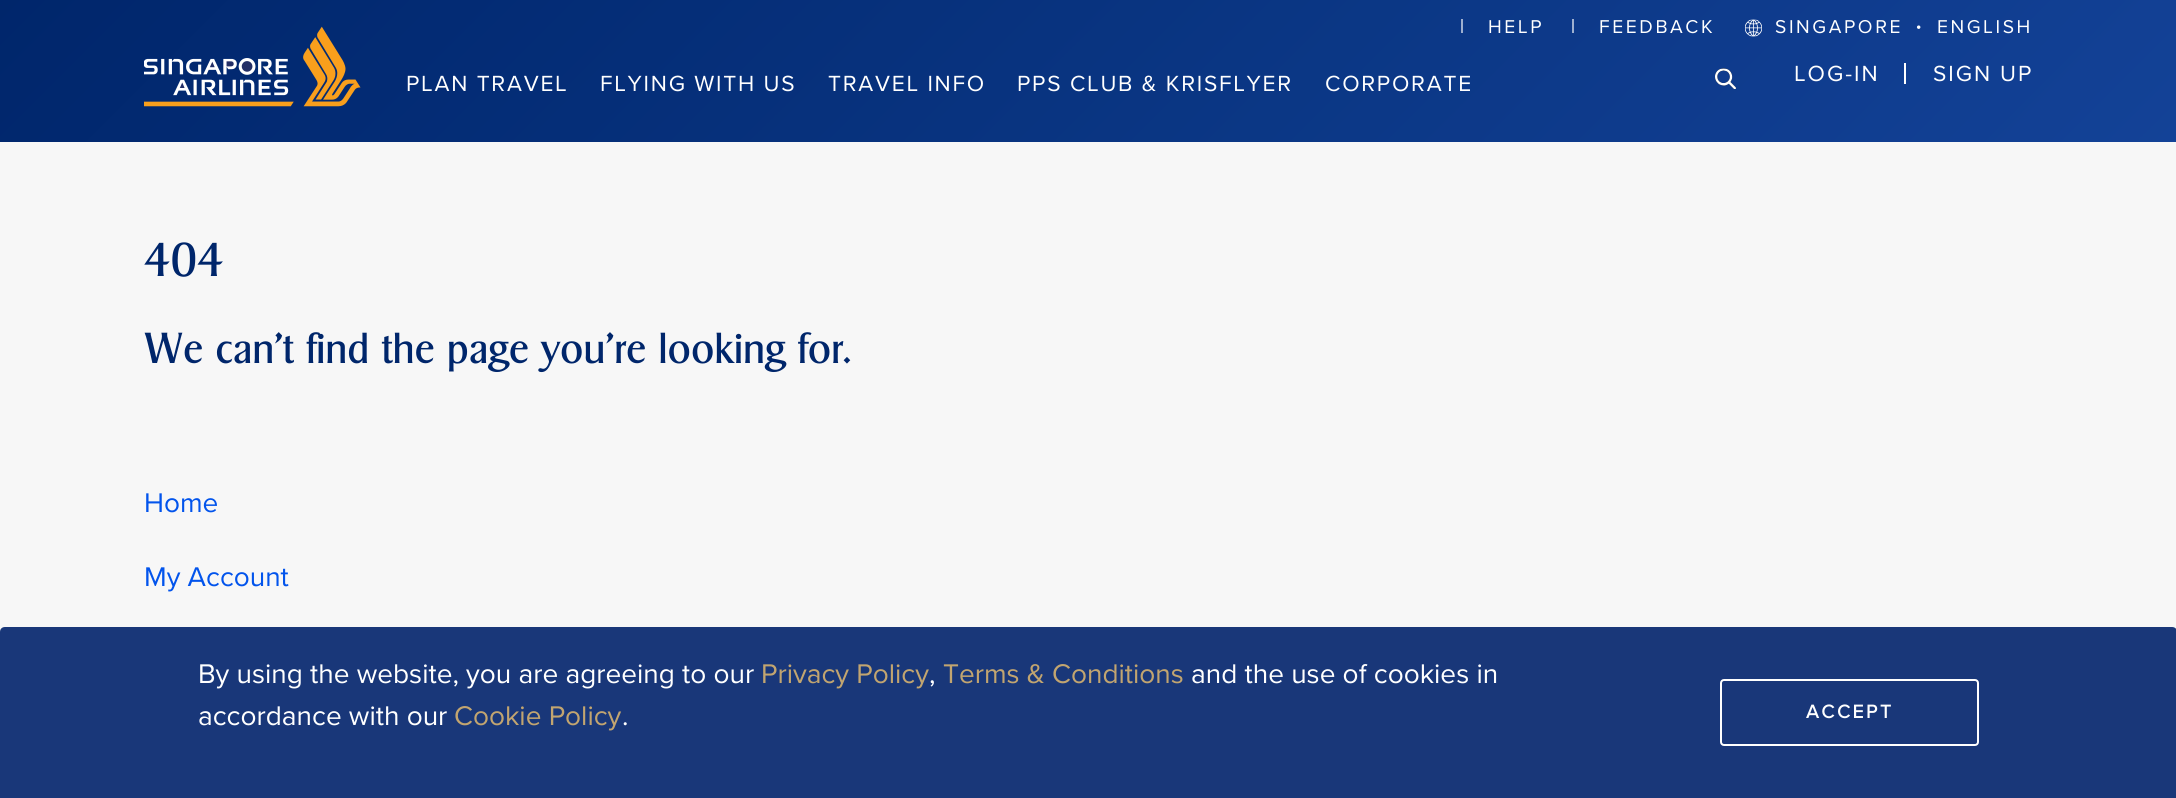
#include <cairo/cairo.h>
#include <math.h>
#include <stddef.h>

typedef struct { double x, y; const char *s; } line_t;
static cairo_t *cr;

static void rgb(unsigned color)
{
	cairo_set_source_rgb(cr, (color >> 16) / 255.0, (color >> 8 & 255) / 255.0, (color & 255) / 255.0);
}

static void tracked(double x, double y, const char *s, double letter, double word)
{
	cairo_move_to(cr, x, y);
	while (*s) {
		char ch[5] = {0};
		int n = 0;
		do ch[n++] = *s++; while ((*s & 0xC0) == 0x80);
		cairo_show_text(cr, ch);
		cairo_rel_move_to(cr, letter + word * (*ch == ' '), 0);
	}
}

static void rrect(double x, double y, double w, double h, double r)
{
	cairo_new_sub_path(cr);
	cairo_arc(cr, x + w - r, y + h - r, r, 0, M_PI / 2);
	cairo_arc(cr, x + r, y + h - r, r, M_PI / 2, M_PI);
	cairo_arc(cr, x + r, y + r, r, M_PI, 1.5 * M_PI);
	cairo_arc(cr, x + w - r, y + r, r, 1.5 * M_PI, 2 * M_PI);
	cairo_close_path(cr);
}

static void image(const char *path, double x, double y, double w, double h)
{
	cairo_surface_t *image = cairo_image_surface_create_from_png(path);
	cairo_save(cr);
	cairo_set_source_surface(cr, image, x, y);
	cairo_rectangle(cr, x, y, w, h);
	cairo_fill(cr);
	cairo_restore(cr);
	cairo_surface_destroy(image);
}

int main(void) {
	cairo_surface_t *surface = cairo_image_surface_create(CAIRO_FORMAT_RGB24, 2176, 798);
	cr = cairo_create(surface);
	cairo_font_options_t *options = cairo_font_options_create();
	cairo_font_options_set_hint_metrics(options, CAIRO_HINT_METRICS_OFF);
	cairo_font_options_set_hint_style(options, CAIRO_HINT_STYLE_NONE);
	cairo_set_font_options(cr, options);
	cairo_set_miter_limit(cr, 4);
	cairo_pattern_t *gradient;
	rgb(0xf7f7f7);
	cairo_paint(cr);
	gradient = cairo_pattern_create_linear(1668, 651, 509, -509);
	cairo_pattern_add_color_stop_rgba(gradient, 0, 0.075, 0.259, 0.592, 1);
	cairo_pattern_add_color_stop_rgba(gradient, 0.2, 0.059, 0.235, 0.557, 1);
	cairo_pattern_add_color_stop_rgba(gradient, 0.4, 0.043, 0.216, 0.522, 1);
	cairo_pattern_add_color_stop_rgba(gradient, 0.6, 0.027, 0.192, 0.486, 1);
	cairo_pattern_add_color_stop_rgba(gradient, 0.8, 0.012, 0.169, 0.455, 1);
	cairo_pattern_add_color_stop_rgba(gradient, 1, 0, 0.149, 0.42, 1);
	cairo_set_source(cr, gradient);
	cairo_pattern_destroy(gradient);
	cairo_rectangle(cr, 0, 0, 2176, 142);
	cairo_fill(cr);
	image("img/1.png", 144, 26, 217, 81);
	rgb(0x9eafcf);
	cairo_rectangle(cr, 1461, 19, 2, 14);
	cairo_fill(cr);
	rgb(0x9eb0d0);
	cairo_rectangle(cr, 1572, 19, 2, 14);
	cairo_fill(cr);
	image("img/2.png", 1745, 19, 17, 18);
	image("img/3.png", 1715, 68, 21, 21);
	rgb(0xffffff);
	cairo_rectangle(cr, 1904, 63, 2, 21);
	cairo_fill(cr);
	rgb(0x193779);
	cairo_new_path(cr);
	cairo_move_to(cr, 5, 627);
	cairo_line_to(cr, 2172, 627);
	cairo_curve_to(cr, 2175, 627, 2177, 629, 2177, 632);
	cairo_line_to(cr, 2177, 798);
	cairo_line_to(cr, 0, 798);
	cairo_line_to(cr, 0, 632);
	cairo_curve_to(cr, 0, 629, 2, 627, 5, 627);
	cairo_close_path(cr);
	cairo_fill(cr);
	rrect(1721, 680, 257, 65, 3);
	rgb(0xffffff);
	cairo_stroke(cr);
	cairo_select_font_face(cr, "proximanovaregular", CAIRO_FONT_SLANT_NORMAL, CAIRO_FONT_WEIGHT_NORMAL);
	cairo_set_font_size(cr, 22.75);
	{
		static const line_t items[] = {
			{406, 91, "PLAN TRAVEL"},
			{600, 91, "FLYING WITH US"},
			{828, 91, "TRAVEL INFO"},
			{1017, 91, "PPS CLUB & KRISFLYER"},
			{1325, 91, "CORPORATE"},
		};
		for (size_t i = 0; i < sizeof items / sizeof *items; i++) {
			tracked(items[i].x, items[i].y, items[i].s, 1.75, 0);
		}
	}
	cairo_set_font_size(cr, 19.25);
	{
		static const line_t items[] = {
			{1488, 33, "HELP"},
			{1599, 33, "FEEDBACK"},
			{1775, 33, "SINGAPORE"},
		};
		for (size_t i = 0; i < sizeof items / sizeof *items; i++) {
			tracked(items[i].x, items[i].y, items[i].s, 2.6, 0);
		}
	}
	cairo_set_font_size(cr, 32);
	tracked(1915, 35, "·", 2.6, 0);
	cairo_set_font_size(cr, 19.25);
	tracked(1937, 33, "ENGLISH", 2.6, 0);
	cairo_set_font_size(cr, 22.75);
	tracked(1794, 81, "LOG-IN", 2, 0);
	tracked(1933, 81, "SIGN UP", 2, 0);
	cairo_set_font_size(cr, 28);
	cairo_move_to(cr, 198, 683);
	cairo_show_text(cr, "By using the website, you are agreeing to our");
	rgb(0xc2a570);
	cairo_move_to(cr, 761, 683);
	cairo_show_text(cr, "Privacy Policy");
	rgb(0xffffff);
	cairo_move_to(cr, 929, 683);
	cairo_show_text(cr, ",");
	rgb(0xc2a570);
	cairo_move_to(cr, 943, 683);
	cairo_show_text(cr, "Terms & Conditions");
	rgb(0xffffff);
	cairo_move_to(cr, 1191, 683);
	cairo_show_text(cr, "and the use of cookies in");
	cairo_move_to(cr, 198, 725);
	cairo_show_text(cr, "accordance with our");
	rgb(0xc2a570);
	cairo_move_to(cr, 454, 725);
	cairo_show_text(cr, "Cookie Policy");
	rgb(0xffffff);
	cairo_move_to(cr, 622, 725);
	cairo_show_text(cr, ".");
	cairo_select_font_face(cr, "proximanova", CAIRO_FONT_SLANT_NORMAL, CAIRO_FONT_WEIGHT_BOLD);
	cairo_set_font_size(cr, 19.25);
	tracked(1806, 718, "ACCEPT", 2.6, 0);
	cairo_select_font_face(cr, "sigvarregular", CAIRO_FONT_SLANT_NORMAL, CAIRO_FONT_WEIGHT_NORMAL);
	cairo_set_font_size(cr, 46);
	rgb(0x00266b);
	cairo_move_to(cr, 144, 276);
	cairo_show_text(cr, "404");
	cairo_set_font_size(cr, 42);
	cairo_move_to(cr, 144, 363);
	cairo_show_text(cr, "We can't find the page you're looking for.");
	cairo_select_font_face(cr, "proximanovaregular", CAIRO_FONT_SLANT_NORMAL, CAIRO_FONT_WEIGHT_NORMAL);
	cairo_set_font_size(cr, 28);
	rgb(0x0254ec);
	cairo_move_to(cr, 144, 512);
	cairo_show_text(cr, "Home");
	cairo_move_to(cr, 144, 586);
	cairo_show_text(cr, "My Account");
	cairo_surface_write_to_png(surface, "page.png");
	cairo_font_options_destroy(options);
	cairo_destroy(cr);
	cairo_surface_destroy(surface);
	return 0;
}
